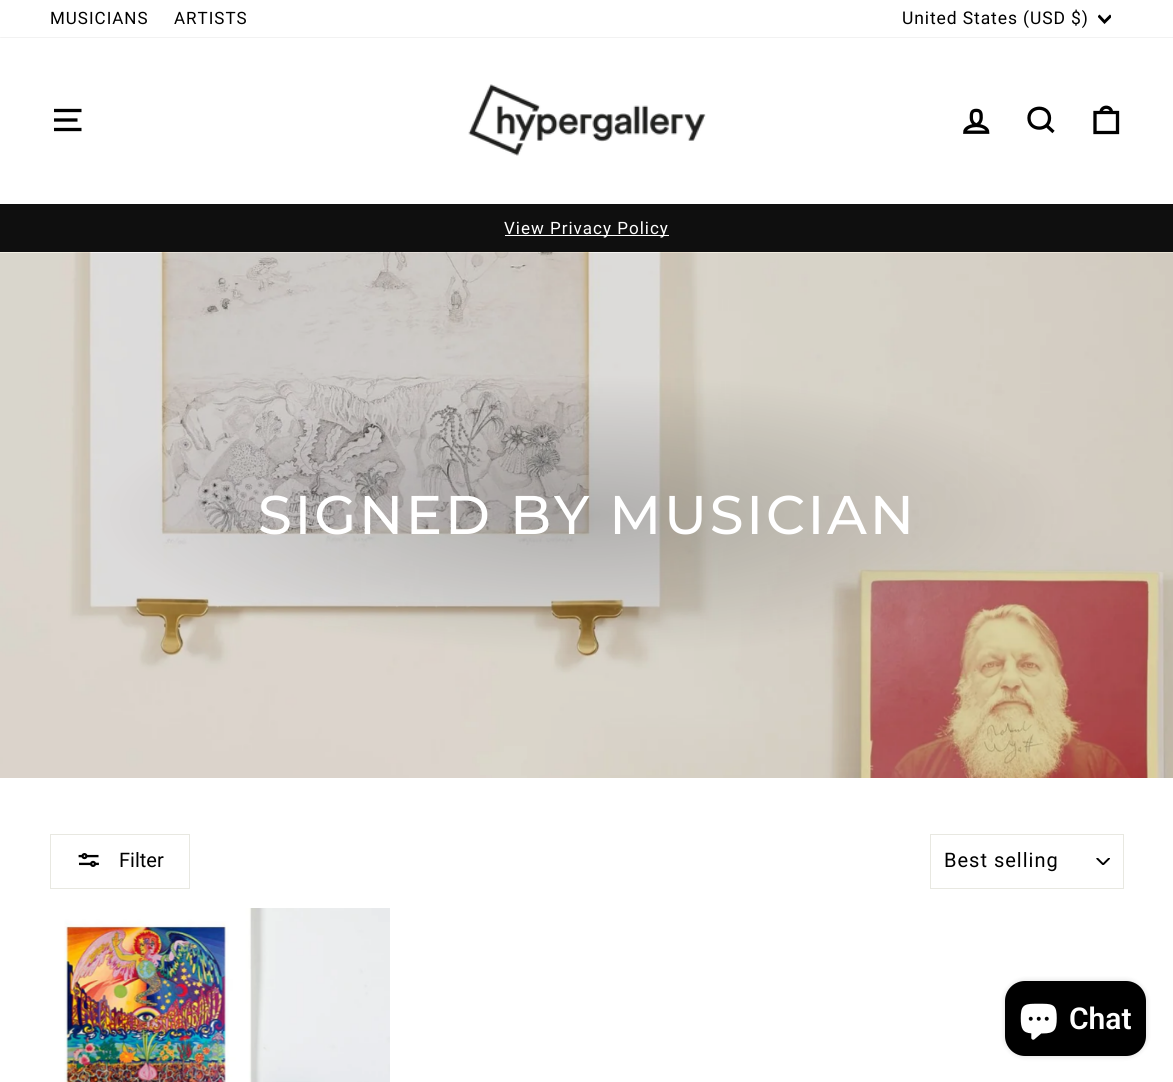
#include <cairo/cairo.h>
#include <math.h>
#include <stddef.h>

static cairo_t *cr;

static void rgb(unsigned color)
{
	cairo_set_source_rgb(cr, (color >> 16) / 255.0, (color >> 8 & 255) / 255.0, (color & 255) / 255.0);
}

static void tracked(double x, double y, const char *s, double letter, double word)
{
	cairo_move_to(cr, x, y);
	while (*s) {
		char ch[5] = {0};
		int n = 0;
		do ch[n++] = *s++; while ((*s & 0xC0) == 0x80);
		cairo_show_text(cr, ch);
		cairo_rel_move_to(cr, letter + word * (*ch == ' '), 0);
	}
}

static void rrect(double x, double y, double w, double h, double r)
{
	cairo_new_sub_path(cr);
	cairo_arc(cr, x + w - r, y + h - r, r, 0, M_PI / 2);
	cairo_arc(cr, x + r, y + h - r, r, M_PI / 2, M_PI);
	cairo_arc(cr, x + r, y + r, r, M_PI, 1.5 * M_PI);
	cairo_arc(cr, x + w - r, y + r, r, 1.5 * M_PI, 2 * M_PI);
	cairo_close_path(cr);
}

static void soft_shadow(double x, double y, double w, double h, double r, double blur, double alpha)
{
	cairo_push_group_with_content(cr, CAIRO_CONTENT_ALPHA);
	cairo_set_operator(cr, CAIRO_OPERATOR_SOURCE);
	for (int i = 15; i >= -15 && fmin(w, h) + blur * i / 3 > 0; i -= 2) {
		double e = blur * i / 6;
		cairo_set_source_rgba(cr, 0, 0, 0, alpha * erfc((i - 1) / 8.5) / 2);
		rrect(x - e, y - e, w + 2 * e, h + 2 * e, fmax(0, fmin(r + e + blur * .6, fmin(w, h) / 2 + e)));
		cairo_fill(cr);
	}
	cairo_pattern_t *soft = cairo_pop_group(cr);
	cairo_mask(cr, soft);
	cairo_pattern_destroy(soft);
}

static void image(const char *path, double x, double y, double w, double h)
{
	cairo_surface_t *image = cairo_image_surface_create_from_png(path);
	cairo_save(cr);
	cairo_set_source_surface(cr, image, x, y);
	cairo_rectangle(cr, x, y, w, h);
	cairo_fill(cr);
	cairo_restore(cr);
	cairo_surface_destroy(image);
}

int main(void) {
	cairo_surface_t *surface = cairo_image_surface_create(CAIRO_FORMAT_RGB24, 1173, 1082);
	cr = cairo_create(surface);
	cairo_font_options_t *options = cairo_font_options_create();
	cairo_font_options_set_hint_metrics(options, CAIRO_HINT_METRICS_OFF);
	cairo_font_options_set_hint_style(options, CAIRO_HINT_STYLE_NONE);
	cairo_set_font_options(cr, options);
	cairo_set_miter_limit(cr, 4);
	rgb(0xffffff);
	cairo_paint(cr);
	cairo_save(cr);
	cairo_rectangle(cr, 1098, 13, 13, 13);
	cairo_clip(cr);
	cairo_new_path(cr);
	cairo_move_to(cr, 1098.5, 15.5);
	cairo_line_to(cr, 1104.5, 22);
	cairo_line_to(cr, 1111, 15.5);
	rgb(0x000000);
	cairo_set_line_width(cr, 2.9);
	cairo_stroke(cr);
	cairo_restore(cr);
	rgb(0x0f0f0f);
	cairo_rectangle(cr, 0, 204, 1173, 48);
	cairo_fill(cr);
	rgb(0x000000);
	soft_shadow(0, 38, 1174, 166, 0, 0.5, 0.2);
	rgb(0xffffff);
	cairo_rectangle(cr, 0, 38, 1173, 166);
	cairo_fill(cr);
	cairo_new_path(cr);
	cairo_move_to(cr, 54, 110.5);
	cairo_line_to(cr, 81.5, 110.5);
	cairo_move_to(cr, 54, 120);
	cairo_line_to(cr, 77.5, 120);
	cairo_move_to(cr, 54, 129.5);
	cairo_line_to(cr, 81.5, 129.5);
	rgb(0x000000);
	cairo_set_line_width(cr, 3.3);
	cairo_stroke(cr);
	image("img/1.png", 468, 84, 238, 72);
	image("img/2.png", 963, 108, 27, 26);
	cairo_new_path(cr);
	cairo_move_to(cr, 1049.5, 118);
	cairo_curve_to(cr, 1049.5, 131.5, 1029, 131.5, 1029, 118);
	cairo_curve_to(cr, 1029, 105, 1049.5, 105, 1049.5, 118);
	cairo_close_path(cr);
	cairo_move_to(cr, 1053.5, 132);
	cairo_line_to(cr, 1046.5, 125.5);
	cairo_stroke(cr);
	cairo_new_path(cr);
	cairo_move_to(cr, 1095, 112.5);
	cairo_line_to(cr, 1117.5, 112.5);
	cairo_line_to(cr, 1117.5, 132.5);
	cairo_line_to(cr, 1095, 132.5);
	cairo_close_path(cr);
	cairo_move_to(cr, 1101, 112.5);
	cairo_curve_to(cr, 1101, 105.5, 1111.5, 105.5, 1111.5, 112.5);
	cairo_stroke(cr);
	rgb(0xffffff);
	cairo_rectangle(cr, 505, 235, 164, 1);
	cairo_fill(cr);
	image("img/3.png", 0, 252, 1173, 526);
	cairo_rectangle(cr, 50.5, 834.5, 139, 54);
	rgb(0xe8e8e1);
	cairo_set_line_width(cr, 1);
	cairo_stroke(cr);
	image("img/4.png", 78, 853, 21, 14);
	image("img/5.png", 1096, 858, 14, 7);
	cairo_rectangle(cr, 930.5, 834.5, 193, 54);
	cairo_stroke(cr);
	image("img/6.png", 64, 908, 326, 174);
	rgb(0x000000);
	soft_shadow(1005, 981, 141, 75, 20, 3, 0.15);
	rgb(0x000000);
	rrect(1005, 981, 141, 75, 20);
	cairo_fill(cr);
	image("img/7.png", 1020, 1003, 37, 37);
	cairo_select_font_face(cr, "Roboto", CAIRO_FONT_SLANT_NORMAL, CAIRO_FONT_WEIGHT_NORMAL);
	cairo_set_font_size(cr, 17);
	tracked(50, 24, "MUSICIANS", 1, 0);
	tracked(174, 24, "ARTISTS", 1, 0);
	cairo_set_font_size(cr, 17.5);
	tracked(902, 24, "United States (USD $)", 0.9, 0);
	cairo_set_font_size(cr, 17);
	rgb(0xffffff);
	tracked(504, 234, "View Privacy Policy", 1, 0);
	cairo_select_font_face(cr, "Montserrat Medium", CAIRO_FONT_SLANT_NORMAL, CAIRO_FONT_WEIGHT_NORMAL);
	cairo_set_font_size(cr, 54.4);
	tracked(258, 534, "SIGNED BY MUSICIAN", 2.75, 0);
	cairo_select_font_face(cr, "Roboto", CAIRO_FONT_SLANT_NORMAL, CAIRO_FONT_WEIGHT_NORMAL);
	cairo_set_font_size(cr, 20);
	rgb(0x000000);
	cairo_move_to(cr, 119, 867);
	cairo_show_text(cr, "Filter");
	tracked(944, 867, "Best selling", 1, 0);
	cairo_select_font_face(cr, "Roboto SemiBold", CAIRO_FONT_SLANT_NORMAL, CAIRO_FONT_WEIGHT_NORMAL);
	cairo_set_font_size(cr, 30);
	rgb(0xffffff);
	cairo_move_to(cr, 1069, 1029);
	cairo_show_text(cr, "Chat");
	cairo_surface_write_to_png(surface, "page.png");
	cairo_font_options_destroy(options);
	cairo_destroy(cr);
	cairo_surface_destroy(surface);
	return 0;
}
